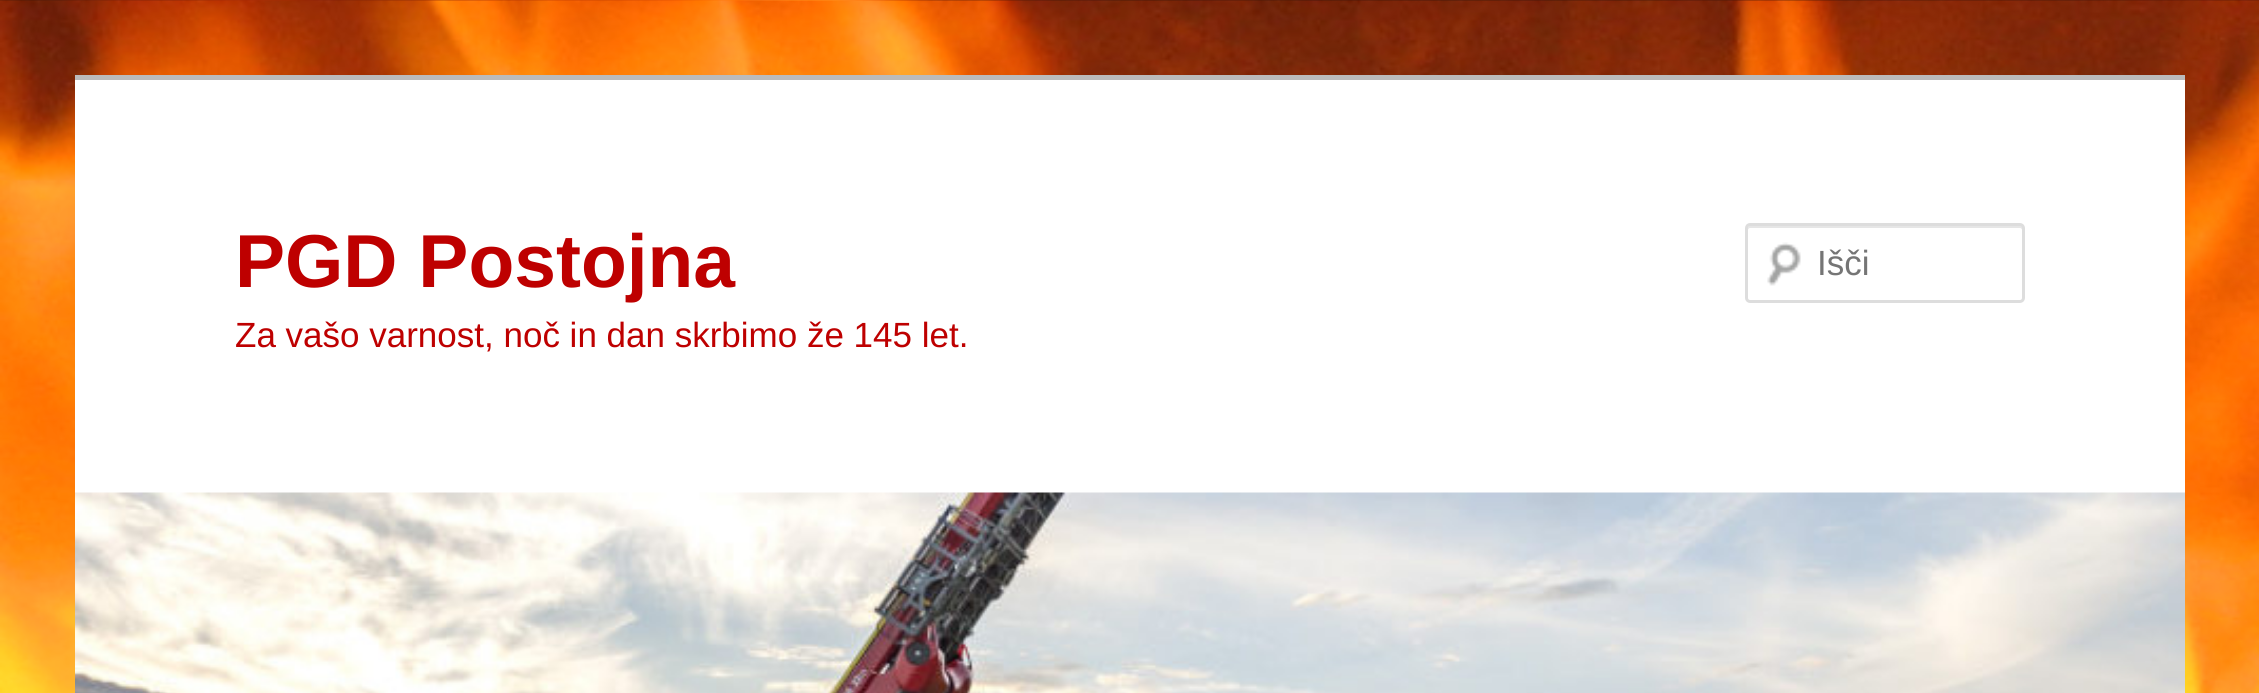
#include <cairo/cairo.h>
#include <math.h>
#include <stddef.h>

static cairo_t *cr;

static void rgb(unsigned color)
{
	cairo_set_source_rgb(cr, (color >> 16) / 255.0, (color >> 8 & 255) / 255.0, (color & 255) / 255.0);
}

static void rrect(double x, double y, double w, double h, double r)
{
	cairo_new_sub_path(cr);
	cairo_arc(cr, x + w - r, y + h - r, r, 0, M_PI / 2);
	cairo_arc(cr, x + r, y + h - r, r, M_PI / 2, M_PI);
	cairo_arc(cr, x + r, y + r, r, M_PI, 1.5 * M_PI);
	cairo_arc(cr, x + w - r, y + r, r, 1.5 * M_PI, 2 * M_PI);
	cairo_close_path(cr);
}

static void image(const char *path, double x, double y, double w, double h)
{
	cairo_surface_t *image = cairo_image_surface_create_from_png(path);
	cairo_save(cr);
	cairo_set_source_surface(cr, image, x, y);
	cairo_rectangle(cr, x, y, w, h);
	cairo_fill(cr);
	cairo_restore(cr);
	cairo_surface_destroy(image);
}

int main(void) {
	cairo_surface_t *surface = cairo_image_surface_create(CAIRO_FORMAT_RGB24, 2259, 693);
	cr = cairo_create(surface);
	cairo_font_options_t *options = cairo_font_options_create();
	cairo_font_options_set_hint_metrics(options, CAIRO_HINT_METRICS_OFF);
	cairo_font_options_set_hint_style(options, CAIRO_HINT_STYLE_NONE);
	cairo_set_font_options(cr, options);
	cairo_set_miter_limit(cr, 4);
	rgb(0xffffff);
	cairo_paint(cr);
	image("img/1.png", 0, 0, 2259, 693);
	rgb(0xffffff);
	cairo_rectangle(cr, 75, 80, 2110, 413);
	cairo_fill(cr);
	rgb(0xbbbbbb);
	cairo_rectangle(cr, 75, 75, 2110, 5);
	cairo_fill(cr);
	image("img/2.png", 1767, 242, 34, 44);
	rgb(0xe6e6e6);
	cairo_new_path(cr);
	cairo_move_to(cr, 1750, 228);
	cairo_line_to(cr, 2020, 228);
	cairo_curve_to(cr, 2021, 228, 2022, 229, 2022, 230);
	cairo_line_to(cr, 2022, 300);
	cairo_curve_to(cr, 2023, 299, 2023, 298, 2023, 298);
	cairo_line_to(cr, 2023, 228);
	cairo_curve_to(cr, 2023, 226, 2022, 225, 2020, 225);
	cairo_line_to(cr, 1750, 225);
	cairo_curve_to(cr, 1749, 225, 1748, 226, 1748, 228);
	cairo_line_to(cr, 1748, 230);
	cairo_curve_to(cr, 1748, 229, 1749, 228, 1750, 228);
	cairo_close_path(cr);
	cairo_fill(cr);
	rrect(1746.5, 224.5, 277, 77, 3.5);
	rgb(0xdddddd);
	cairo_set_line_width(cr, 3);
	cairo_stroke(cr);
	image("img/3.png", 75, 492, 2110, 201);
	cairo_select_font_face(cr, "Liberation Sans", CAIRO_FONT_SLANT_NORMAL, CAIRO_FONT_WEIGHT_BOLD);
	cairo_set_font_size(cr, 75);
	rgb(0xbe0000);
	cairo_move_to(cr, 235, 287);
	cairo_show_text(cr, "PGD Postojna");
	cairo_select_font_face(cr, "Liberation Sans", CAIRO_FONT_SLANT_NORMAL, CAIRO_FONT_WEIGHT_NORMAL);
	cairo_set_font_size(cr, 35);
	cairo_move_to(cr, 235, 347);
	cairo_show_text(cr, "Za vašo varnost, noč in dan skrbimo že 145 let.");
	rgb(0x757575);
	cairo_move_to(cr, 1817, 275);
	cairo_show_text(cr, "Išči");
	cairo_surface_write_to_png(surface, "page.png");
	cairo_font_options_destroy(options);
	cairo_destroy(cr);
	cairo_surface_destroy(surface);
	return 0;
}
